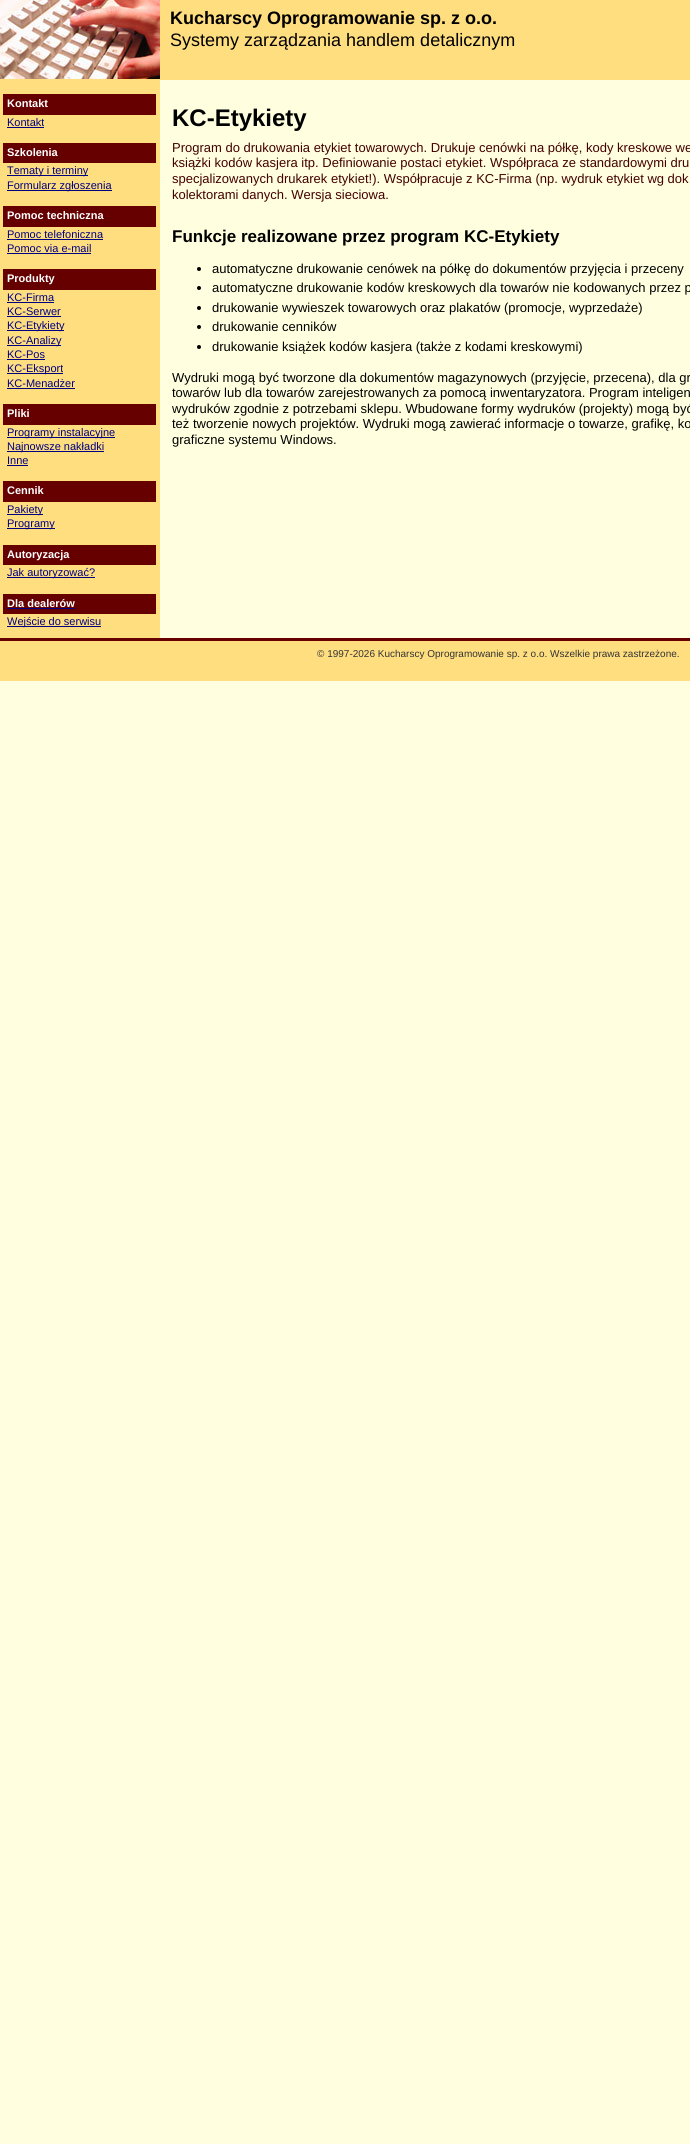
#include <cairo/cairo.h>
#include <math.h>
#include <stddef.h>

typedef struct { double x, y; const char *s; } line_t;
typedef struct { double x, y, w, h; unsigned color; } box_t;
static cairo_t *cr;

static void rgb(unsigned color)
{
	cairo_set_source_rgb(cr, (color >> 16) / 255.0, (color >> 8 & 255) / 255.0, (color & 255) / 255.0);
}

static void image(const char *path, double x, double y, double w, double h)
{
	cairo_surface_t *image = cairo_image_surface_create_from_png(path);
	cairo_save(cr);
	cairo_set_source_surface(cr, image, x, y);
	cairo_rectangle(cr, x, y, w, h);
	cairo_fill(cr);
	cairo_restore(cr);
	cairo_surface_destroy(image);
}

int main(void) {
	cairo_surface_t *surface = cairo_image_surface_create(CAIRO_FORMAT_RGB24, 690, 2144);
	cr = cairo_create(surface);
	cairo_font_options_t *options = cairo_font_options_create();
	cairo_font_options_set_hint_metrics(options, CAIRO_HINT_METRICS_OFF);
	cairo_font_options_set_hint_style(options, CAIRO_HINT_STYLE_NONE);
	cairo_set_font_options(cr, options);
	cairo_set_miter_limit(cr, 4);
	rgb(0xffffe0);
	cairo_paint(cr);
	rgb(0xffde80);
	cairo_rectangle(cr, 0, 0, 690, 80);
	cairo_fill(cr);
	image("img/1.png", 0, 0, 160, 79);
	{
		static const box_t items[] = {
			{0, 80, 160, 558, 0xffde80},
			{3, 94, 153, 21, 0x660000},
			{7, 127, 37, 1, 0x000080},
			{3, 143, 153, 20, 0x660000},
			{7, 175, 81, 1, 0x000080},
			{7, 190, 105, 1, 0x000080},
			{3, 206, 153, 21, 0x660000},
			{7, 239, 96, 1, 0x000080},
			{7, 253, 84, 1, 0x000080},
			{3, 269, 153, 21, 0x660000},
			{7, 302, 47, 1, 0x000080},
			{7, 316, 54, 1, 0x000080},
			{7, 330, 57, 1, 0x000080},
			{7, 345, 54, 1, 0x000080},
			{7, 359, 38, 1, 0x000080},
			{7, 373, 56, 1, 0x000080},
			{7, 388, 68, 1, 0x000080},
			{3, 404, 153, 21, 0x660000},
			{7, 437, 108, 1, 0x000080},
			{7, 451, 97, 1, 0x000080},
			{7, 465, 21, 1, 0x000080},
			{3, 481, 153, 21, 0x660000},
			{7, 514, 36, 1, 0x000080},
			{7, 528, 48, 1, 0x000080},
			{3, 545, 153, 20, 0x660000},
			{7, 577, 88, 1, 0x000080},
			{3, 594, 153, 20, 0x660000},
			{7, 608, 68, 1, 0x000080},
			{7, 626, 94, 1, 0x000080},
		};
		for (size_t i = 0; i < sizeof items / sizeof *items; i++) {
			rgb(items[i].color);
			cairo_rectangle(cr, items[i].x, items[i].y, items[i].w, items[i].h);
			cairo_fill(cr);
		}
	}
	rgb(0x000000);
	cairo_arc(cr, 199, 269, 2, 0, 2 * M_PI);
	cairo_fill(cr);
	cairo_arc(cr, 199, 288, 2, 0, 2 * M_PI);
	cairo_fill(cr);
	cairo_arc(cr, 199, 308, 2, 0, 2 * M_PI);
	cairo_fill(cr);
	cairo_arc(cr, 199, 327, 2, 0, 2 * M_PI);
	cairo_fill(cr);
	cairo_arc(cr, 199, 347, 2, 0, 2 * M_PI);
	cairo_fill(cr);
	rgb(0xffde80);
	cairo_rectangle(cr, 0, 641, 690, 40);
	cairo_fill(cr);
	rgb(0x660000);
	cairo_rectangle(cr, 0, 638, 690, 3);
	cairo_fill(cr);
	cairo_select_font_face(cr, "Liberation Sans", CAIRO_FONT_SLANT_NORMAL, CAIRO_FONT_WEIGHT_BOLD);
	cairo_set_font_size(cr, 18);
	rgb(0x000000);
	cairo_move_to(cr, 170, 24);
	cairo_show_text(cr, "Kucharscy Oprogramowanie sp. z o.o.");
	cairo_select_font_face(cr, "Liberation Sans", CAIRO_FONT_SLANT_NORMAL, CAIRO_FONT_WEIGHT_NORMAL);
	cairo_move_to(cr, 170, 46);
	cairo_show_text(cr, "Systemy zarządzania handlem detalicznym");
	cairo_select_font_face(cr, "Liberation Sans", CAIRO_FONT_SLANT_NORMAL, CAIRO_FONT_WEIGHT_BOLD);
	cairo_set_font_size(cr, 11);
	rgb(0xffffff);
	cairo_move_to(cr, 7, 107);
	cairo_show_text(cr, "Kontakt");
	cairo_select_font_face(cr, "Liberation Sans", CAIRO_FONT_SLANT_NORMAL, CAIRO_FONT_WEIGHT_NORMAL);
	rgb(0x000080);
	cairo_move_to(cr, 7, 126);
	cairo_show_text(cr, "Kontakt");
	cairo_select_font_face(cr, "Liberation Sans", CAIRO_FONT_SLANT_NORMAL, CAIRO_FONT_WEIGHT_BOLD);
	rgb(0xffffff);
	cairo_move_to(cr, 7, 156);
	cairo_show_text(cr, "Szkolenia");
	cairo_select_font_face(cr, "Liberation Sans", CAIRO_FONT_SLANT_NORMAL, CAIRO_FONT_WEIGHT_NORMAL);
	rgb(0x000080);
	cairo_move_to(cr, 7, 174);
	cairo_show_text(cr, "Tematy i terminy");
	cairo_move_to(cr, 7, 189);
	cairo_show_text(cr, "Formularz zgłoszenia");
	cairo_select_font_face(cr, "Liberation Sans", CAIRO_FONT_SLANT_NORMAL, CAIRO_FONT_WEIGHT_BOLD);
	rgb(0xffffff);
	cairo_move_to(cr, 7, 219);
	cairo_show_text(cr, "Pomoc techniczna");
	cairo_select_font_face(cr, "Liberation Sans", CAIRO_FONT_SLANT_NORMAL, CAIRO_FONT_WEIGHT_NORMAL);
	rgb(0x000080);
	cairo_move_to(cr, 7, 238);
	cairo_show_text(cr, "Pomoc telefoniczna");
	cairo_move_to(cr, 7, 252);
	cairo_show_text(cr, "Pomoc via e-mail");
	cairo_select_font_face(cr, "Liberation Sans", CAIRO_FONT_SLANT_NORMAL, CAIRO_FONT_WEIGHT_BOLD);
	rgb(0xffffff);
	cairo_move_to(cr, 7, 282);
	cairo_show_text(cr, "Produkty");
	cairo_select_font_face(cr, "Liberation Sans", CAIRO_FONT_SLANT_NORMAL, CAIRO_FONT_WEIGHT_NORMAL);
	rgb(0x000080);
	{
		static const line_t items[] = {
			{7, 301, "KC-Firma"},
			{7, 315, "KC-Serwer"},
			{7, 329, "KC-Etykiety"},
			{7, 344, "KC-Analizy"},
			{7, 358, "KC-Pos"},
			{7, 372, "KC-Eksport"},
			{7, 387, "KC-Menadżer"},
		};
		for (size_t i = 0; i < sizeof items / sizeof *items; i++) {
			cairo_move_to(cr, items[i].x, items[i].y);
			cairo_show_text(cr, items[i].s);
		}
	}
	cairo_select_font_face(cr, "Liberation Sans", CAIRO_FONT_SLANT_NORMAL, CAIRO_FONT_WEIGHT_BOLD);
	rgb(0xffffff);
	cairo_move_to(cr, 7, 417);
	cairo_show_text(cr, "Pliki");
	cairo_select_font_face(cr, "Liberation Sans", CAIRO_FONT_SLANT_NORMAL, CAIRO_FONT_WEIGHT_NORMAL);
	rgb(0x000080);
	{
		static const line_t items[] = {
			{7, 436, "Programy instalacyjne"},
			{7, 450, "Najnowsze nakładki"},
			{7, 464, "Inne"},
		};
		for (size_t i = 0; i < sizeof items / sizeof *items; i++) {
			cairo_move_to(cr, items[i].x, items[i].y);
			cairo_show_text(cr, items[i].s);
		}
	}
	cairo_select_font_face(cr, "Liberation Sans", CAIRO_FONT_SLANT_NORMAL, CAIRO_FONT_WEIGHT_BOLD);
	rgb(0xffffff);
	cairo_move_to(cr, 7, 494);
	cairo_show_text(cr, "Cennik");
	cairo_select_font_face(cr, "Liberation Sans", CAIRO_FONT_SLANT_NORMAL, CAIRO_FONT_WEIGHT_NORMAL);
	rgb(0x000080);
	cairo_move_to(cr, 7, 513);
	cairo_show_text(cr, "Pakiety");
	cairo_move_to(cr, 7, 527);
	cairo_show_text(cr, "Programy");
	cairo_select_font_face(cr, "Liberation Sans", CAIRO_FONT_SLANT_NORMAL, CAIRO_FONT_WEIGHT_BOLD);
	rgb(0xffffff);
	cairo_move_to(cr, 7, 558);
	cairo_show_text(cr, "Autoryzacja");
	cairo_select_font_face(cr, "Liberation Sans", CAIRO_FONT_SLANT_NORMAL, CAIRO_FONT_WEIGHT_NORMAL);
	rgb(0x000080);
	cairo_move_to(cr, 7, 576);
	cairo_show_text(cr, "Jak autoryzować?");
	cairo_select_font_face(cr, "Liberation Sans", CAIRO_FONT_SLANT_NORMAL, CAIRO_FONT_WEIGHT_BOLD);
	rgb(0xffffff);
	cairo_move_to(cr, 7, 607);
	cairo_show_text(cr, "Dla dealerów");
	cairo_select_font_face(cr, "Liberation Sans", CAIRO_FONT_SLANT_NORMAL, CAIRO_FONT_WEIGHT_NORMAL);
	rgb(0x000080);
	cairo_move_to(cr, 7, 625);
	cairo_show_text(cr, "Wejście do serwisu");
	cairo_select_font_face(cr, "Liberation Sans", CAIRO_FONT_SLANT_NORMAL, CAIRO_FONT_WEIGHT_BOLD);
	cairo_set_font_size(cr, 24);
	rgb(0x000000);
	cairo_move_to(cr, 172, 126);
	cairo_show_text(cr, "KC-Etykiety");
	cairo_select_font_face(cr, "Liberation Sans", CAIRO_FONT_SLANT_NORMAL, CAIRO_FONT_WEIGHT_NORMAL);
	cairo_set_font_size(cr, 13);
	rgb(0x430000);
	{
		static const line_t items[] = {
			{172, 152, "Program do drukowania etykiet towarowych. Drukuje cenówki na półkę, kody kreskowe we"},
			{172, 167, "książki kodów kasjera itp. Definiowanie postaci etykiet. Współpraca ze standardowymi dru"},
			{172, 183, "specjalizowanych drukarek etykiet!). Współpracuje z KC-Firma (np. wydruk etykiet wg dok"},
			{172, 199, "kolektorami danych. Wersja sieciowa."},
		};
		for (size_t i = 0; i < sizeof items / sizeof *items; i++) {
			cairo_move_to(cr, items[i].x, items[i].y);
			cairo_show_text(cr, items[i].s);
		}
	}
	cairo_select_font_face(cr, "Liberation Sans", CAIRO_FONT_SLANT_NORMAL, CAIRO_FONT_WEIGHT_BOLD);
	cairo_set_font_size(cr, 17);
	rgb(0x000000);
	cairo_move_to(cr, 172, 242);
	cairo_show_text(cr, "Funkcje realizowane przez program KC-Etykiety");
	cairo_select_font_face(cr, "Liberation Sans", CAIRO_FONT_SLANT_NORMAL, CAIRO_FONT_WEIGHT_NORMAL);
	cairo_set_font_size(cr, 13);
	{
		static const line_t items[] = {
			{212, 273, "automatyczne drukowanie cenówek na półkę do dokumentów przyjęcia i przeceny"},
			{212, 292, "automatyczne drukowanie kodów kreskowych dla towarów nie kodowanych przez p"},
			{212, 312, "drukowanie wywieszek towarowych oraz plakatów (promocje, wyprzedaże)"},
			{212, 331, "drukowanie cenników"},
			{212, 351, "drukowanie książek kodów kasjera (także z kodami kreskowymi)"},
			{172, 382, "Wydruki mogą być tworzone dla dokumentów magazynowych (przyjęcie, przecena), dla gr"},
			{172, 397, "towarów lub dla towarów zarejestrowanych za pomocą inwentaryzatora. Program inteligen"},
			{172, 413, "wydruków zgodnie z potrzebami sklepu. Wbudowane formy wydruków (projekty) mogą być"},
			{172, 428, "też tworzenie nowych projektów. Wydruki mogą zawierać informacje o towarze, grafikę, ko"},
			{172, 444, "graficzne systemu Windows."},
		};
		for (size_t i = 0; i < sizeof items / sizeof *items; i++) {
			cairo_move_to(cr, items[i].x, items[i].y);
			cairo_show_text(cr, items[i].s);
		}
	}
	cairo_set_font_size(cr, 10);
	rgb(0x333333);
	cairo_move_to(cr, 317, 657);
	cairo_show_text(cr, "© 1997-2026 Kucharscy Oprogramowanie sp. z o.o. Wszelkie prawa zastrzeżone.");
	cairo_surface_write_to_png(surface, "page.png");
	cairo_font_options_destroy(options);
	cairo_destroy(cr);
	cairo_surface_destroy(surface);
	return 0;
}
